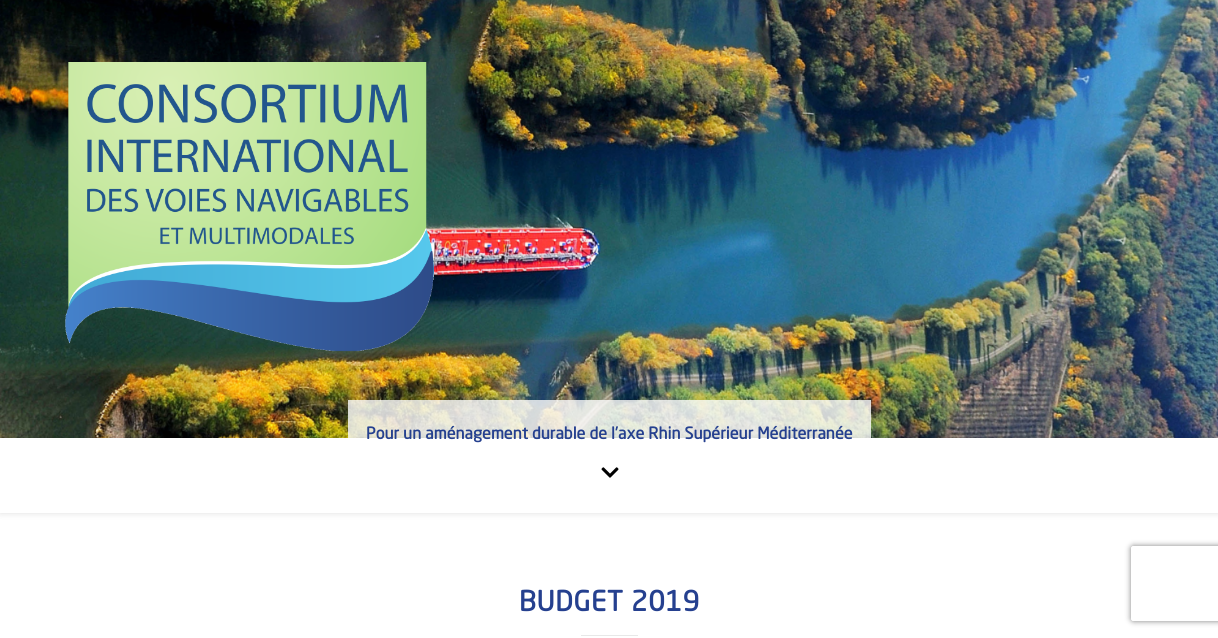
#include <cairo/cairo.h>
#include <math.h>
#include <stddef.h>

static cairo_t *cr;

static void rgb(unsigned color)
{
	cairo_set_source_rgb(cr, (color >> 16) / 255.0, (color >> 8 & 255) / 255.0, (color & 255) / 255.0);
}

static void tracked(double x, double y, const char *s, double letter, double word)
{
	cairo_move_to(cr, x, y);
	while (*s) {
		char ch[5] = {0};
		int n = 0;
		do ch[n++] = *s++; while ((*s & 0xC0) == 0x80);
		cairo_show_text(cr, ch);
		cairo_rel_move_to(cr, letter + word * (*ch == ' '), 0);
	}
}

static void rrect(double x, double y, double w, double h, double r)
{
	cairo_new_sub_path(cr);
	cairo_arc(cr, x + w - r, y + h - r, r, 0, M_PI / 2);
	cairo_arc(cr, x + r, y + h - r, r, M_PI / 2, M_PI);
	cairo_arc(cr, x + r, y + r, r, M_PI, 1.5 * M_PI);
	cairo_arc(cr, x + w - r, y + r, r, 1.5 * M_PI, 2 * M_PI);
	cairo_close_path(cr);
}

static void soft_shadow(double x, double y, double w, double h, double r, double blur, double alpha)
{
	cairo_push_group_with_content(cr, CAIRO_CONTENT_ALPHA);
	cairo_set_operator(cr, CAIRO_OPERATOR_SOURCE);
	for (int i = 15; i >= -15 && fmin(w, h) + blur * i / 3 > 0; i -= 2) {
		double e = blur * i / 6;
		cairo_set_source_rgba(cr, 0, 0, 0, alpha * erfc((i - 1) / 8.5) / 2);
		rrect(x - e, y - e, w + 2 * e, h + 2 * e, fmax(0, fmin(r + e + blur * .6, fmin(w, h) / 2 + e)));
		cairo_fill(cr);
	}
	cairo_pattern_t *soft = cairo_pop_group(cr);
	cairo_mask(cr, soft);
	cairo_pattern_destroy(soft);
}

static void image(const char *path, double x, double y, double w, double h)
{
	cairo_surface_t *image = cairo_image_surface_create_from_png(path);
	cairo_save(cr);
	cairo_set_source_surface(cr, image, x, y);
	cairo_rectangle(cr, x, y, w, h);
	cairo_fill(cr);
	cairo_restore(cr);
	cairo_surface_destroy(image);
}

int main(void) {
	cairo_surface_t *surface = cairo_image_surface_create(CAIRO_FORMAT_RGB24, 1218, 638);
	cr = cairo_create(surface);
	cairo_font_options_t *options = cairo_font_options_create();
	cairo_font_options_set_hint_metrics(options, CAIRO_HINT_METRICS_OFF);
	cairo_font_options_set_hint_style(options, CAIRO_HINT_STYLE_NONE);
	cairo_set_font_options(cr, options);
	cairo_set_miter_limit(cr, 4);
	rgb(0xffffff);
	cairo_paint(cr);
	image("img/1.png", 0, 0, 1218, 438);
	image("img/2.png", 65, 62, 370, 290);
	cairo_set_source_rgba(cr, 1, 1, 1, 0.8);
	cairo_rectangle(cr, 348, 400, 523, 38);
	cairo_fill(cr);
	rgb(0x000000);
	soft_shadow(0, 439, 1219, 75, 0, 3, 0.1);
	rgb(0xffffff);
	cairo_rectangle(cr, 0, 438, 1218, 75);
	cairo_fill(cr);
	image("img/3.png", 601, 467, 18, 11);
	rgb(0xe8e8e8);
	cairo_rectangle(cr, 581, 635, 57, 1);
	cairo_fill(cr);
	cairo_save(cr);
	cairo_set_fill_rule(cr, CAIRO_FILL_RULE_EVEN_ODD);
	cairo_new_path(cr);
	cairo_move_to(cr, 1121, 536);
	cairo_line_to(cr, 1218, 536);
	cairo_line_to(cr, 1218, 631);
	cairo_line_to(cr, 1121, 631);
	cairo_close_path(cr);
	cairo_move_to(cr, 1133.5, 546);
	cairo_line_to(cr, 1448.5, 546);
	cairo_curve_to(cr, 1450, 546, 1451, 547, 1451, 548.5);
	cairo_line_to(cr, 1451, 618.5);
	cairo_curve_to(cr, 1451, 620, 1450, 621, 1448.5, 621);
	cairo_line_to(cr, 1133.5, 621);
	cairo_curve_to(cr, 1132, 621, 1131, 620, 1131, 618.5);
	cairo_line_to(cr, 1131, 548.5);
	cairo_curve_to(cr, 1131, 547, 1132, 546, 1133.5, 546);
	cairo_close_path(cr);
	cairo_clip(cr);
	rgb(0x808080);
	soft_shadow(1131, 546, 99, 75, 2.5, 3, 1);
	cairo_restore(cr);
	cairo_select_font_face(cr, "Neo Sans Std", CAIRO_FONT_SLANT_NORMAL, CAIRO_FONT_WEIGHT_BOLD);
	cairo_set_font_size(cr, 16.25);
	rgb(0x25408f);
	cairo_move_to(cr, 366, 439);
	cairo_show_text(cr, "Pour un aménagement durable de l’axe Rhin Supérieur Méditerranée");
	cairo_set_font_size(cr, 27.5);
	tracked(519, 611, "BUDGET 2019", 0.6, 0);
	cairo_surface_write_to_png(surface, "page.png");
	cairo_font_options_destroy(options);
	cairo_destroy(cr);
	cairo_surface_destroy(surface);
	return 0;
}
